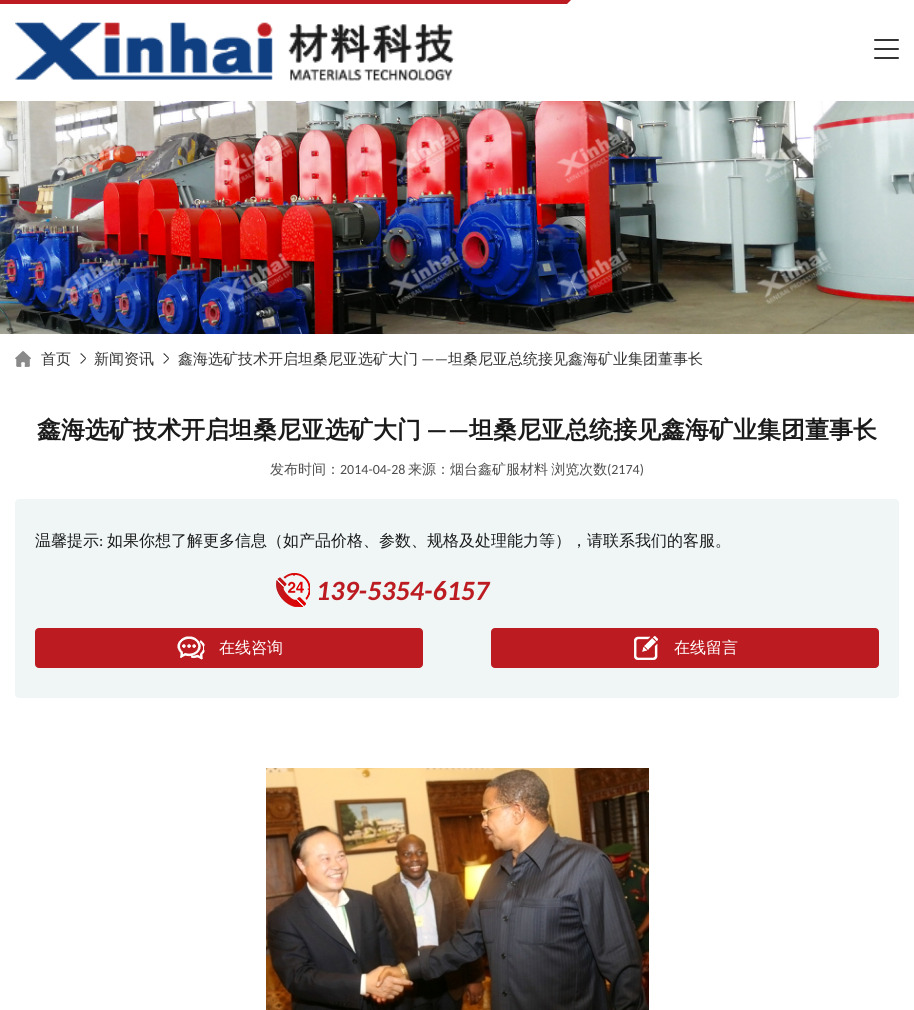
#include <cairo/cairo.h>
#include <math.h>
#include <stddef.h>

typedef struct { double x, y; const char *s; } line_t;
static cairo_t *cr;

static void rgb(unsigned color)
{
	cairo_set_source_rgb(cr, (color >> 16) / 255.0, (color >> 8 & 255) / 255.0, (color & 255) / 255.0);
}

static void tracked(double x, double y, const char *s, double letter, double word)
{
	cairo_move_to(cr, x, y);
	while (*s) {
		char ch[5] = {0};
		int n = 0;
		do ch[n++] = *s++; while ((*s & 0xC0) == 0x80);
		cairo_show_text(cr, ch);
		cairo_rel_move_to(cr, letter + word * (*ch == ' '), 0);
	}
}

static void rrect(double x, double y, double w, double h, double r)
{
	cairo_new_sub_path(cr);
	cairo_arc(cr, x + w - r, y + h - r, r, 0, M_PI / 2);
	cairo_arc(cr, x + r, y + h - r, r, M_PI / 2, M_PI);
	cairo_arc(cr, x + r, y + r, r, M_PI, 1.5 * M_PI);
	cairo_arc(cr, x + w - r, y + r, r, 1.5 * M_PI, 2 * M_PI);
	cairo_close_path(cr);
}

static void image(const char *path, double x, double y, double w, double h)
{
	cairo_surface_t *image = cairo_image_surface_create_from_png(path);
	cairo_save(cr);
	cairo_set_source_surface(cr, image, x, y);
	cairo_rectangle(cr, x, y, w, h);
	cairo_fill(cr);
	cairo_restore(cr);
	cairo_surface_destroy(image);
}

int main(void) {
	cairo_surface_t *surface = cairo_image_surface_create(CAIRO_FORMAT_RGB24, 914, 1010);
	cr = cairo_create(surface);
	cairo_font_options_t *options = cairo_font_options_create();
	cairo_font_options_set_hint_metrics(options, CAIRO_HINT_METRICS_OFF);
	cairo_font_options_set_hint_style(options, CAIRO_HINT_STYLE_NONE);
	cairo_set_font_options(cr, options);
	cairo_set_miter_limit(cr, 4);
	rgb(0xffffff);
	cairo_paint(cr);
	rgb(0xbc1c21);
	cairo_rectangle(cr, 0, 0, 567, 4);
	cairo_fill(cr);
	cairo_new_path(cr);
	cairo_move_to(cr, 567, 0);
	cairo_line_to(cr, 571, 0);
	cairo_line_to(cr, 567, 4);
	cairo_close_path(cr);
	cairo_fill(cr);
	image("img/1.png", 15, 22, 440, 59);
	rgb(0x333333);
	rrect(874, 39, 25, 2, 1);
	cairo_fill(cr);
	rrect(874, 48, 25, 2, 1);
	cairo_fill(cr);
	rrect(874, 57, 25, 2, 1);
	cairo_fill(cr);
	image("img/2.png", 0, 101, 914, 233);
	image("img/3.png", 15, 351, 16, 16);
	image("img/4.png", 80, 353, 6, 11);
	image("img/4.png", 163, 353, 6, 11);
	rgb(0xf0f6f6);
	rrect(15, 499, 884, 199, 4);
	cairo_fill(cr);
	image("img/5.png", 276, 573, 34, 34);
	rgb(0xbc1c21);
	rrect(35, 628, 388, 40, 4);
	cairo_fill(cr);
	image("img/6.png", 177, 636, 28, 24);
	rrect(491, 628, 388, 40, 4);
	cairo_fill(cr);
	image("img/7.png", 634, 636, 24, 24);
	image("img/8.png", 266, 768, 383, 242);
	cairo_select_font_face(cr, "WenQuanYi Zen Hei Medium", CAIRO_FONT_SLANT_NORMAL, CAIRO_FONT_WEIGHT_NORMAL);
	cairo_set_font_size(cr, 15);
	rgb(0x333333);
	{
		static const line_t items[] = {
			{41, 364, "首页"},
			{94, 364, "新闻资讯"},
			{178, 364, "鑫海选矿技术开启坦桑尼亚选矿大门"},
		};
		for (size_t i = 0; i < sizeof items / sizeof *items; i++) {
			cairo_move_to(cr, items[i].x, items[i].y);
			cairo_show_text(cr, items[i].s);
		}
	}
	cairo_select_font_face(cr, "Carlito", CAIRO_FONT_SLANT_NORMAL, CAIRO_FONT_WEIGHT_NORMAL);
	cairo_move_to(cr, 421, 364);
	cairo_show_text(cr, "——");
	cairo_select_font_face(cr, "WenQuanYi Zen Hei Medium", CAIRO_FONT_SLANT_NORMAL, CAIRO_FONT_WEIGHT_NORMAL);
	cairo_move_to(cr, 448, 364);
	cairo_show_text(cr, "坦桑尼亚总统接见鑫海矿业集团董事长");
	cairo_select_font_face(cr, "WenQuanYi Zen Hei", CAIRO_FONT_SLANT_NORMAL, CAIRO_FONT_WEIGHT_BOLD);
	cairo_set_font_size(cr, 24);
	rgb(0x1a1a1a);
	cairo_move_to(cr, 37, 438);
	cairo_show_text(cr, "鑫海选矿技术开启坦桑尼亚选矿大门");
	cairo_select_font_face(cr, "Carlito", CAIRO_FONT_SLANT_NORMAL, CAIRO_FONT_WEIGHT_BOLD);
	cairo_move_to(cr, 426, 438);
	cairo_show_text(cr, "——");
	cairo_select_font_face(cr, "WenQuanYi Zen Hei", CAIRO_FONT_SLANT_NORMAL, CAIRO_FONT_WEIGHT_BOLD);
	cairo_move_to(cr, 469, 438);
	cairo_show_text(cr, "坦桑尼亚总统接见鑫海矿业集团董事长");
	cairo_select_font_face(cr, "WenQuanYi Zen Hei Medium", CAIRO_FONT_SLANT_NORMAL, CAIRO_FONT_WEIGHT_NORMAL);
	cairo_set_font_size(cr, 14);
	rgb(0x4d4d4d);
	cairo_move_to(cr, 270, 474);
	cairo_show_text(cr, "发布时间：");
	cairo_select_font_face(cr, "Carlito", CAIRO_FONT_SLANT_NORMAL, CAIRO_FONT_WEIGHT_NORMAL);
	cairo_move_to(cr, 340, 474);
	cairo_show_text(cr, "2014-04-28");
	cairo_select_font_face(cr, "WenQuanYi Zen Hei Medium", CAIRO_FONT_SLANT_NORMAL, CAIRO_FONT_WEIGHT_NORMAL);
	tracked(408, 474, "来源：烟台鑫矿服材料 浏览次数", 0, -1);
	cairo_select_font_face(cr, "Carlito", CAIRO_FONT_SLANT_NORMAL, CAIRO_FONT_WEIGHT_NORMAL);
	cairo_move_to(cr, 607, 474);
	cairo_show_text(cr, "(2174)");
	cairo_select_font_face(cr, "WenQuanYi Zen Hei Medium", CAIRO_FONT_SLANT_NORMAL, CAIRO_FONT_WEIGHT_NORMAL);
	cairo_set_font_size(cr, 16);
	rgb(0x1a1a1a);
	cairo_move_to(cr, 35, 546);
	cairo_show_text(cr, "温馨提示");
	cairo_select_font_face(cr, "Carlito", CAIRO_FONT_SLANT_NORMAL, CAIRO_FONT_WEIGHT_NORMAL);
	cairo_move_to(cr, 99, 546);
	cairo_show_text(cr, ":");
	cairo_select_font_face(cr, "WenQuanYi Zen Hei Medium", CAIRO_FONT_SLANT_NORMAL, CAIRO_FONT_WEIGHT_NORMAL);
	cairo_move_to(cr, 107, 546);
	cairo_show_text(cr, "如果你想了解更多信息（如产品价格、参数、规格及处理能力等），请联系我们的客服。");
	cairo_select_font_face(cr, "Carlito", CAIRO_FONT_SLANT_ITALIC, CAIRO_FONT_WEIGHT_BOLD);
	cairo_set_font_size(cr, 28);
	rgb(0xbc1c21);
	cairo_move_to(cr, 316, 600);
	cairo_show_text(cr, "139-5354-6157");
	cairo_select_font_face(cr, "WenQuanYi Zen Hei Medium", CAIRO_FONT_SLANT_NORMAL, CAIRO_FONT_WEIGHT_NORMAL);
	cairo_set_font_size(cr, 16);
	rgb(0xffffff);
	cairo_move_to(cr, 219, 653);
	cairo_show_text(cr, "在线咨询");
	cairo_move_to(cr, 674, 653);
	cairo_show_text(cr, "在线留言");
	cairo_surface_write_to_png(surface, "page.png");
	cairo_font_options_destroy(options);
	cairo_destroy(cr);
	cairo_surface_destroy(surface);
	return 0;
}
